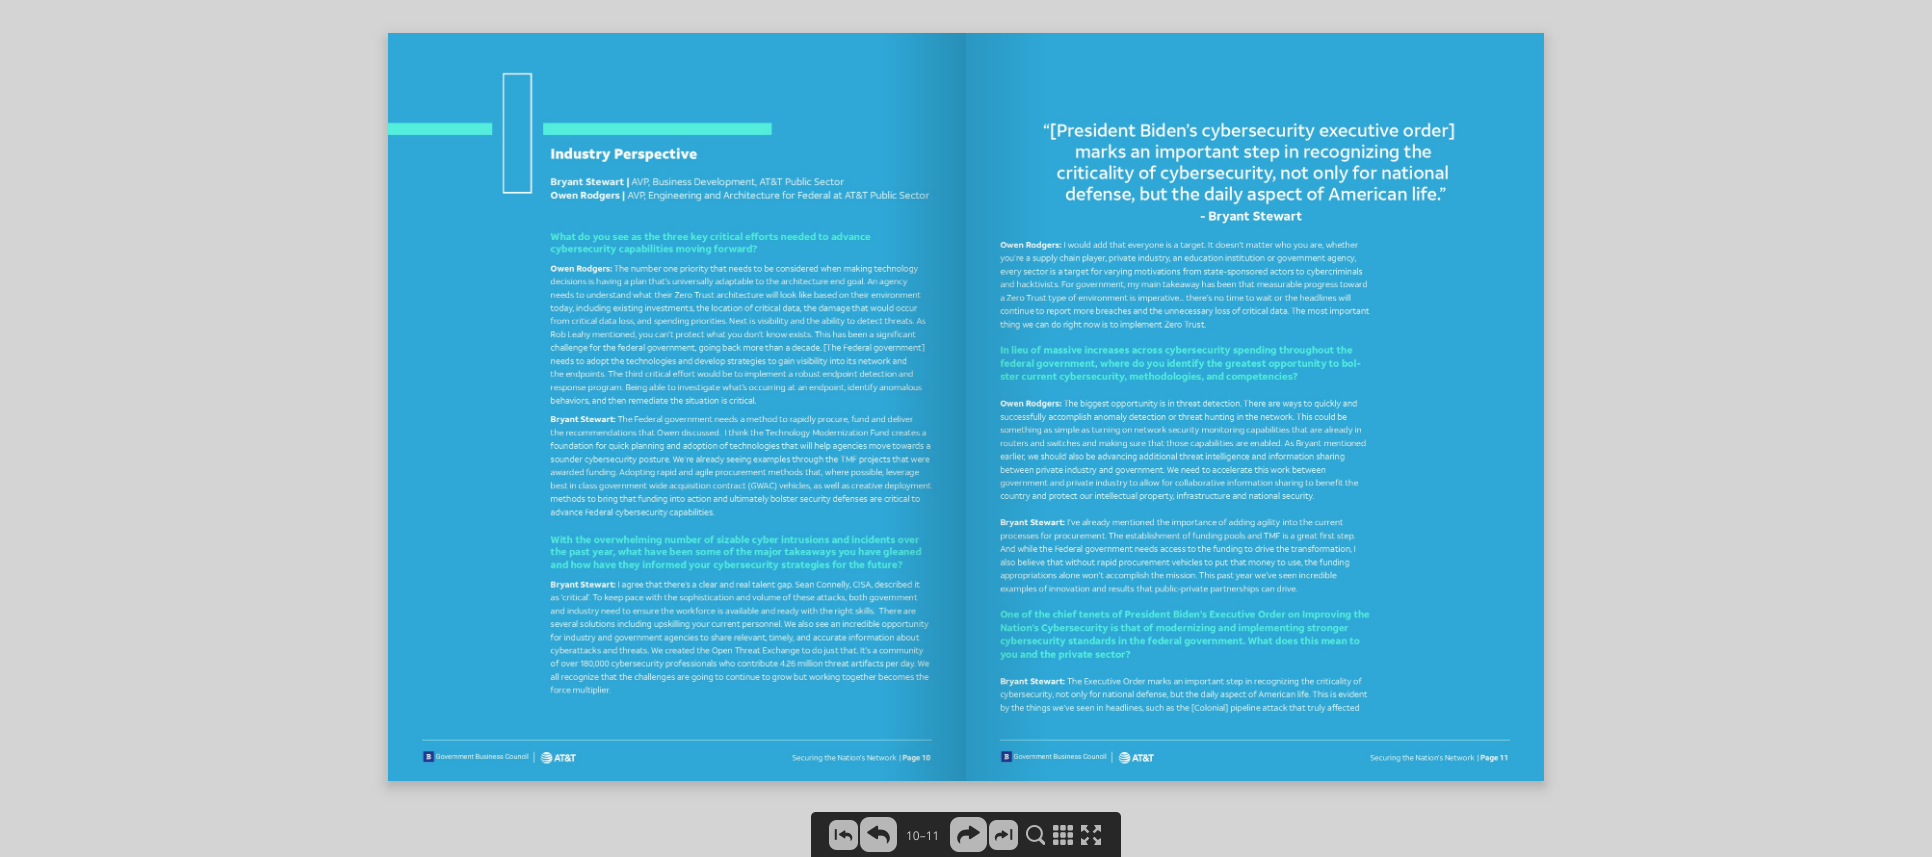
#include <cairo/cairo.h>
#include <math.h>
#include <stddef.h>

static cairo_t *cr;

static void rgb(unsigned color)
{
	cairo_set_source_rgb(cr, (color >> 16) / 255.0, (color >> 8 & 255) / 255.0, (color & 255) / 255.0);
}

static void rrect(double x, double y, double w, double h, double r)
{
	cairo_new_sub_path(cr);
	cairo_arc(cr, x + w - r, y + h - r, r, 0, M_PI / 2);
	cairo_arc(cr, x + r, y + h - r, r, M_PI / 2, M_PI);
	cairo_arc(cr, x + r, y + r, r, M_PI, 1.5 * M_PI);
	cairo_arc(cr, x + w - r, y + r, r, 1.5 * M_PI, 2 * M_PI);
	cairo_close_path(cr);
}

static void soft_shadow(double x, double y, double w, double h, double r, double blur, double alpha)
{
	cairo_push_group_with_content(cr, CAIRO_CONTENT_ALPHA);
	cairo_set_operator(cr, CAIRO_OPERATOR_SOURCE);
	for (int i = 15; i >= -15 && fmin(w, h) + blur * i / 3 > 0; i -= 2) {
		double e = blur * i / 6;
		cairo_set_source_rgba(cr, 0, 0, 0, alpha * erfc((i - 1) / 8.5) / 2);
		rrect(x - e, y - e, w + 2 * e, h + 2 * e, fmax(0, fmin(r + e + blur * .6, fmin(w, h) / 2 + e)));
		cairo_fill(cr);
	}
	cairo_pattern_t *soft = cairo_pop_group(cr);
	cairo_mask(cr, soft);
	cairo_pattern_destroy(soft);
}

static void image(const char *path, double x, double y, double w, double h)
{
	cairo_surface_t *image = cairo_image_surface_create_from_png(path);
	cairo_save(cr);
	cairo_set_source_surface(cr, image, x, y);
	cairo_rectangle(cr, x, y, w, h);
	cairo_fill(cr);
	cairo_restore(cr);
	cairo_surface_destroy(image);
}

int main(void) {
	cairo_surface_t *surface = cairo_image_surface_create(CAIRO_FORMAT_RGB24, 1932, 857);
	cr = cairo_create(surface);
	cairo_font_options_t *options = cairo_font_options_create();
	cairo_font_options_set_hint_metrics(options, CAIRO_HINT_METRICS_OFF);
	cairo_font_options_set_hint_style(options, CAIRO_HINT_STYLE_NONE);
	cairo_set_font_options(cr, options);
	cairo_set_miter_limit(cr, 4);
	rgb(0xd4d4d4);
	cairo_paint(cr);
	rgb(0xaaaaaa);
	soft_shadow(388, 38, 1156, 748, 0, 7, 1);
	image("img/1.png", 388, 33, 578, 748);
	image("img/2.png", 966, 33, 578, 748);
	rgb(0x272727);
	cairo_new_path(cr);
	cairo_move_to(cr, 816, 812);
	cairo_line_to(cr, 1116, 812);
	cairo_curve_to(cr, 1119, 812, 1121, 814, 1121, 817);
	cairo_line_to(cr, 1121, 857);
	cairo_line_to(cr, 811, 857);
	cairo_line_to(cr, 811, 817);
	cairo_curve_to(cr, 811, 814, 813, 812, 816, 812);
	cairo_close_path(cr);
	cairo_fill(cr);
	image("img/3.png", 829, 820, 29, 30);
	image("img/4.png", 860, 817, 37, 35);
	image("img/5.png", 950, 817, 37, 35);
	image("img/6.png", 989, 820, 29, 30);
	image("img/7.png", 1026, 825, 19, 20);
	image("img/8.png", 1053, 825, 20, 20);
	image("img/9.png", 1081, 825, 20, 20);
	cairo_select_font_face(cr, "Open Sans", CAIRO_FONT_SLANT_NORMAL, CAIRO_FONT_WEIGHT_NORMAL);
	cairo_set_font_size(cr, 12);
	rgb(0xcccccc);
	cairo_move_to(cr, 906, 840);
	cairo_show_text(cr, "10–11");
	cairo_surface_write_to_png(surface, "page.png");
	cairo_font_options_destroy(options);
	cairo_destroy(cr);
	cairo_surface_destroy(surface);
	return 0;
}
